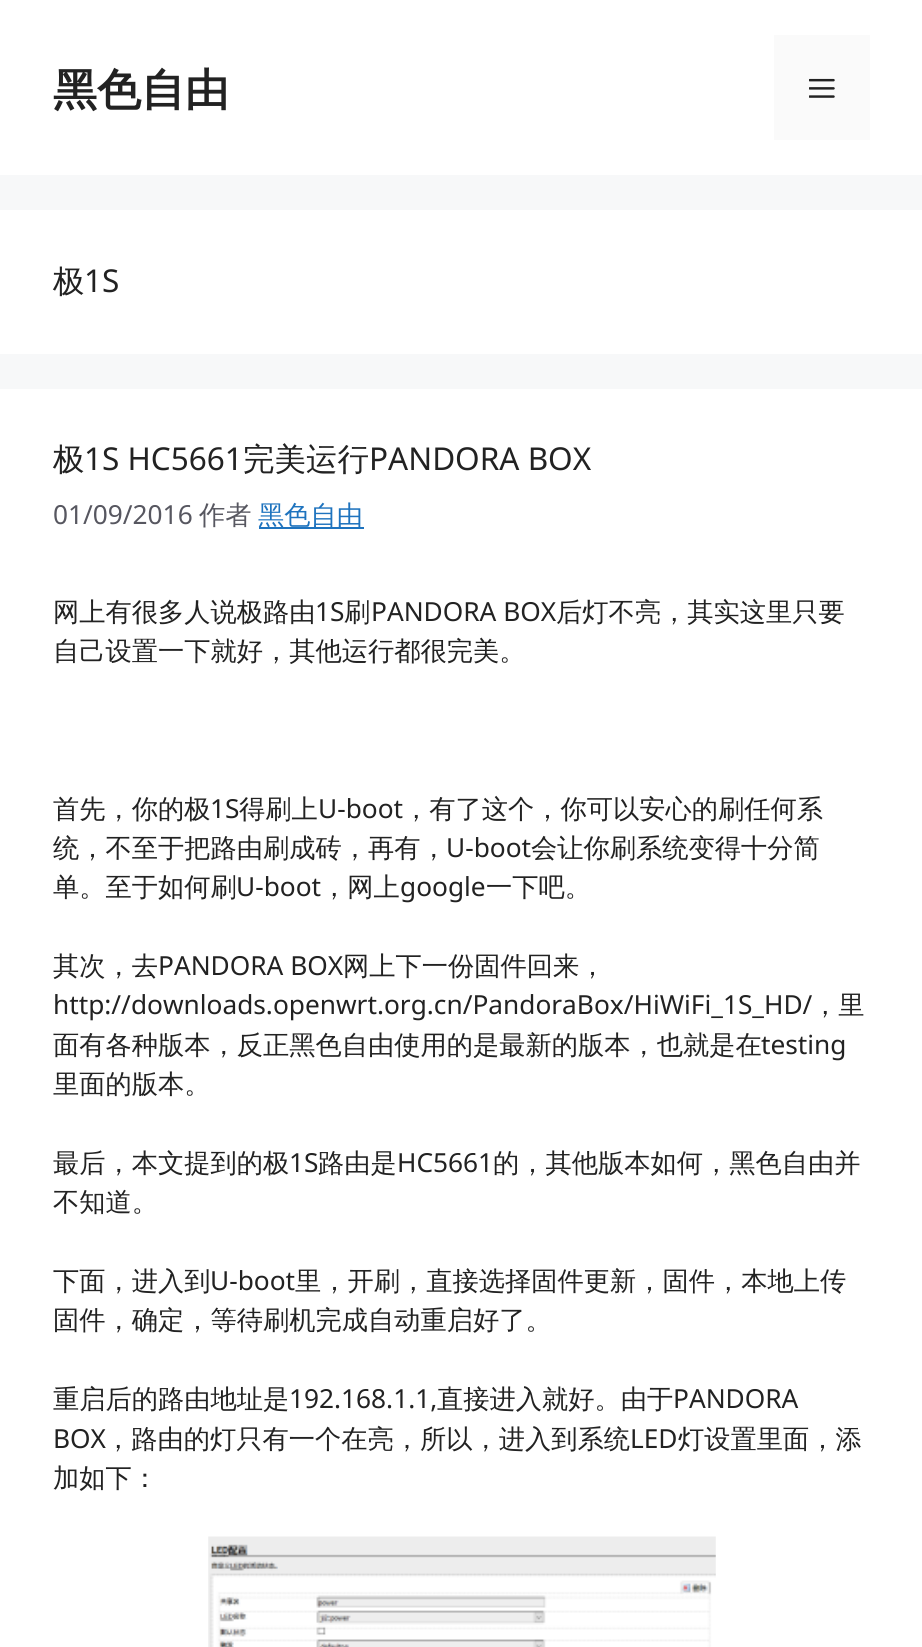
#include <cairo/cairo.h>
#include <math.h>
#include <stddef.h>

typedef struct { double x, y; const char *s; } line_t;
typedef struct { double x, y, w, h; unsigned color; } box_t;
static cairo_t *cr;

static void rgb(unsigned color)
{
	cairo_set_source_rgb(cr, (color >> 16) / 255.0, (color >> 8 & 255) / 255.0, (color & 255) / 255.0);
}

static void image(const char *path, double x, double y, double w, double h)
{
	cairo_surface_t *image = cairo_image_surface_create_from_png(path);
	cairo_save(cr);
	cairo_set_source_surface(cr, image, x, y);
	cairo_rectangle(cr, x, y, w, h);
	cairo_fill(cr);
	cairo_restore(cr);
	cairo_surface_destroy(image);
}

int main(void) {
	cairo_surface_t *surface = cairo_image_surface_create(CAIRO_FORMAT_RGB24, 922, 1647);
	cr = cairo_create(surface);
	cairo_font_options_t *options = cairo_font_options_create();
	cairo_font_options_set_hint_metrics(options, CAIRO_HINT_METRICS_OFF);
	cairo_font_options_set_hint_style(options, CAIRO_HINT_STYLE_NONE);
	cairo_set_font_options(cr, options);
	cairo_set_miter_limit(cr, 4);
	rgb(0xf7f8f9);
	cairo_paint(cr);
	rgb(0xffffff);
	cairo_rectangle(cr, 0, 0, 922, 175);
	cairo_fill(cr);
	rgb(0xfafafa);
	cairo_rectangle(cr, 774, 35, 96, 105);
	cairo_fill(cr);
	image("img/1.png", 809, 78, 26, 20);
	{
		static const box_t items[] = {
			{0, 210, 922, 144, 0xffffff},
			{0, 389, 922, 1258, 0xffffff},
			{259, 527, 105, 2, 0x1e73be},
		};
		for (size_t i = 0; i < sizeof items / sizeof *items; i++) {
			rgb(items[i].color);
			cairo_rectangle(cr, items[i].x, items[i].y, items[i].w, items[i].h);
			cairo_fill(cr);
		}
	}
	image("img/2.png", 208, 1536, 508, 111);
	cairo_select_font_face(cr, "WenQuanYi Zen Hei", CAIRO_FONT_SLANT_NORMAL, CAIRO_FONT_WEIGHT_BOLD);
	cairo_set_font_size(cr, 44);
	rgb(0x222222);
	cairo_move_to(cr, 53, 105);
	cairo_show_text(cr, "黑色自由");
	cairo_select_font_face(cr, "WenQuanYi Zen Hei Medium", CAIRO_FONT_SLANT_NORMAL, CAIRO_FONT_WEIGHT_NORMAL);
	cairo_set_font_size(cr, 31.5);
	cairo_move_to(cr, 53, 292);
	cairo_show_text(cr, "极");
	cairo_select_font_face(cr, "Noto Sans", CAIRO_FONT_SLANT_NORMAL, CAIRO_FONT_WEIGHT_NORMAL);
	cairo_move_to(cr, 84, 292);
	cairo_show_text(cr, "1S");
	cairo_select_font_face(cr, "WenQuanYi Zen Hei Medium", CAIRO_FONT_SLANT_NORMAL, CAIRO_FONT_WEIGHT_NORMAL);
	cairo_move_to(cr, 53, 470);
	cairo_show_text(cr, "极");
	cairo_select_font_face(cr, "Noto Sans", CAIRO_FONT_SLANT_NORMAL, CAIRO_FONT_WEIGHT_NORMAL);
	cairo_move_to(cr, 84, 470);
	cairo_show_text(cr, "1S HC5661");
	cairo_select_font_face(cr, "WenQuanYi Zen Hei Medium", CAIRO_FONT_SLANT_NORMAL, CAIRO_FONT_WEIGHT_NORMAL);
	cairo_move_to(cr, 243, 470);
	cairo_show_text(cr, "完美运行");
	cairo_select_font_face(cr, "Noto Sans", CAIRO_FONT_SLANT_NORMAL, CAIRO_FONT_WEIGHT_NORMAL);
	cairo_move_to(cr, 369, 470);
	cairo_show_text(cr, "PANDORA BOX");
	cairo_set_font_size(cr, 26.25);
	rgb(0x575760);
	cairo_move_to(cr, 53, 524);
	cairo_show_text(cr, "01/09/2016");
	cairo_select_font_face(cr, "WenQuanYi Zen Hei Medium", CAIRO_FONT_SLANT_NORMAL, CAIRO_FONT_WEIGHT_NORMAL);
	cairo_move_to(cr, 199, 524);
	cairo_show_text(cr, "作者");
	rgb(0x1e73be);
	cairo_move_to(cr, 258, 524);
	cairo_show_text(cr, "黑色自由");
	rgb(0x222222);
	cairo_move_to(cr, 53, 621);
	cairo_show_text(cr, "网上有很多人说极路由");
	cairo_select_font_face(cr, "Noto Sans", CAIRO_FONT_SLANT_NORMAL, CAIRO_FONT_WEIGHT_NORMAL);
	cairo_move_to(cr, 315, 621);
	cairo_show_text(cr, "1S");
	cairo_select_font_face(cr, "WenQuanYi Zen Hei Medium", CAIRO_FONT_SLANT_NORMAL, CAIRO_FONT_WEIGHT_NORMAL);
	cairo_move_to(cr, 344, 621);
	cairo_show_text(cr, "刷");
	cairo_select_font_face(cr, "Noto Sans", CAIRO_FONT_SLANT_NORMAL, CAIRO_FONT_WEIGHT_NORMAL);
	cairo_move_to(cr, 371, 621);
	cairo_show_text(cr, "PANDORA BOX");
	cairo_select_font_face(cr, "WenQuanYi Zen Hei Medium", CAIRO_FONT_SLANT_NORMAL, CAIRO_FONT_WEIGHT_NORMAL);
	{
		static const line_t items[] = {
			{556, 621, "后灯不亮，其实这里只要"},
			{53, 660, "自己设置一下就好，其他运行都很完美。"},
			{53, 818, "首先，你的极"},
		};
		for (size_t i = 0; i < sizeof items / sizeof *items; i++) {
			cairo_move_to(cr, items[i].x, items[i].y);
			cairo_show_text(cr, items[i].s);
		}
	}
	cairo_select_font_face(cr, "Noto Sans", CAIRO_FONT_SLANT_NORMAL, CAIRO_FONT_WEIGHT_NORMAL);
	cairo_move_to(cr, 210, 818);
	cairo_show_text(cr, "1S");
	cairo_select_font_face(cr, "WenQuanYi Zen Hei Medium", CAIRO_FONT_SLANT_NORMAL, CAIRO_FONT_WEIGHT_NORMAL);
	cairo_move_to(cr, 239, 818);
	cairo_show_text(cr, "得刷上");
	cairo_select_font_face(cr, "Noto Sans", CAIRO_FONT_SLANT_NORMAL, CAIRO_FONT_WEIGHT_NORMAL);
	cairo_move_to(cr, 318, 818);
	cairo_show_text(cr, "U-boot");
	cairo_select_font_face(cr, "WenQuanYi Zen Hei Medium", CAIRO_FONT_SLANT_NORMAL, CAIRO_FONT_WEIGHT_NORMAL);
	cairo_move_to(cr, 403, 818);
	cairo_show_text(cr, "，有了这个，你可以安心的刷任何系");
	cairo_move_to(cr, 53, 857);
	cairo_show_text(cr, "统，不至于把路由刷成砖，再有，");
	cairo_select_font_face(cr, "Noto Sans", CAIRO_FONT_SLANT_NORMAL, CAIRO_FONT_WEIGHT_NORMAL);
	cairo_move_to(cr, 446, 857);
	cairo_show_text(cr, "U-boot");
	cairo_select_font_face(cr, "WenQuanYi Zen Hei Medium", CAIRO_FONT_SLANT_NORMAL, CAIRO_FONT_WEIGHT_NORMAL);
	cairo_move_to(cr, 531, 857);
	cairo_show_text(cr, "会让你刷系统变得十分简");
	cairo_move_to(cr, 53, 896);
	cairo_show_text(cr, "单。至于如何刷");
	cairo_select_font_face(cr, "Noto Sans", CAIRO_FONT_SLANT_NORMAL, CAIRO_FONT_WEIGHT_NORMAL);
	cairo_move_to(cr, 236, 896);
	cairo_show_text(cr, "U-boot");
	cairo_select_font_face(cr, "WenQuanYi Zen Hei Medium", CAIRO_FONT_SLANT_NORMAL, CAIRO_FONT_WEIGHT_NORMAL);
	cairo_move_to(cr, 321, 896);
	cairo_show_text(cr, "，网上");
	cairo_select_font_face(cr, "Noto Sans", CAIRO_FONT_SLANT_NORMAL, CAIRO_FONT_WEIGHT_NORMAL);
	cairo_move_to(cr, 400, 896);
	cairo_show_text(cr, "google");
	cairo_select_font_face(cr, "WenQuanYi Zen Hei Medium", CAIRO_FONT_SLANT_NORMAL, CAIRO_FONT_WEIGHT_NORMAL);
	cairo_move_to(cr, 486, 896);
	cairo_show_text(cr, "一下吧。");
	cairo_move_to(cr, 53, 975);
	cairo_show_text(cr, "其次，去");
	cairo_select_font_face(cr, "Noto Sans", CAIRO_FONT_SLANT_NORMAL, CAIRO_FONT_WEIGHT_NORMAL);
	cairo_move_to(cr, 158, 975);
	cairo_show_text(cr, "PANDORA BOX");
	cairo_select_font_face(cr, "WenQuanYi Zen Hei Medium", CAIRO_FONT_SLANT_NORMAL, CAIRO_FONT_WEIGHT_NORMAL);
	cairo_move_to(cr, 343, 975);
	cairo_show_text(cr, "网上下一份固件回来，");
	cairo_select_font_face(cr, "Noto Sans", CAIRO_FONT_SLANT_NORMAL, CAIRO_FONT_WEIGHT_NORMAL);
	cairo_move_to(cr, 53, 1014);
	cairo_show_text(cr, "http://downloads.openwrt.org.cn/PandoraBox/HiWiFi_1S_HD/");
	cairo_select_font_face(cr, "WenQuanYi Zen Hei Medium", CAIRO_FONT_SLANT_NORMAL, CAIRO_FONT_WEIGHT_NORMAL);
	cairo_move_to(cr, 812, 1014);
	cairo_show_text(cr, "，里");
	cairo_move_to(cr, 53, 1054);
	cairo_show_text(cr, "面有各种版本，反正黑色自由使用的是最新的版本，也就是在");
	cairo_select_font_face(cr, "Noto Sans", CAIRO_FONT_SLANT_NORMAL, CAIRO_FONT_WEIGHT_NORMAL);
	cairo_move_to(cr, 761, 1054);
	cairo_show_text(cr, "testing");
	cairo_select_font_face(cr, "WenQuanYi Zen Hei Medium", CAIRO_FONT_SLANT_NORMAL, CAIRO_FONT_WEIGHT_NORMAL);
	cairo_move_to(cr, 53, 1093);
	cairo_show_text(cr, "里面的版本。");
	cairo_move_to(cr, 53, 1172);
	cairo_show_text(cr, "最后，本文提到的极");
	cairo_select_font_face(cr, "Noto Sans", CAIRO_FONT_SLANT_NORMAL, CAIRO_FONT_WEIGHT_NORMAL);
	cairo_move_to(cr, 289, 1172);
	cairo_show_text(cr, "1S");
	cairo_select_font_face(cr, "WenQuanYi Zen Hei Medium", CAIRO_FONT_SLANT_NORMAL, CAIRO_FONT_WEIGHT_NORMAL);
	cairo_move_to(cr, 318, 1172);
	cairo_show_text(cr, "路由是");
	cairo_select_font_face(cr, "Noto Sans", CAIRO_FONT_SLANT_NORMAL, CAIRO_FONT_WEIGHT_NORMAL);
	cairo_move_to(cr, 397, 1172);
	cairo_show_text(cr, "HC5661");
	cairo_select_font_face(cr, "WenQuanYi Zen Hei Medium", CAIRO_FONT_SLANT_NORMAL, CAIRO_FONT_WEIGHT_NORMAL);
	{
		static const line_t items[] = {
			{493, 1172, "的，其他版本如何，黑色自由并"},
			{53, 1211, "不知道。"},
			{53, 1290, "下面，进入到"},
		};
		for (size_t i = 0; i < sizeof items / sizeof *items; i++) {
			cairo_move_to(cr, items[i].x, items[i].y);
			cairo_show_text(cr, items[i].s);
		}
	}
	cairo_select_font_face(cr, "Noto Sans", CAIRO_FONT_SLANT_NORMAL, CAIRO_FONT_WEIGHT_NORMAL);
	cairo_move_to(cr, 210, 1290);
	cairo_show_text(cr, "U-boot");
	cairo_select_font_face(cr, "WenQuanYi Zen Hei Medium", CAIRO_FONT_SLANT_NORMAL, CAIRO_FONT_WEIGHT_NORMAL);
	{
		static const line_t items[] = {
			{295, 1290, "里，开刷，直接选择固件更新，固件，本地上传"},
			{53, 1329, "固件，确定，等待刷机完成自动重启好了。"},
			{53, 1408, "重启后的路由地址是"},
		};
		for (size_t i = 0; i < sizeof items / sizeof *items; i++) {
			cairo_move_to(cr, items[i].x, items[i].y);
			cairo_show_text(cr, items[i].s);
		}
	}
	cairo_select_font_face(cr, "Noto Sans", CAIRO_FONT_SLANT_NORMAL, CAIRO_FONT_WEIGHT_NORMAL);
	cairo_move_to(cr, 289, 1408);
	cairo_show_text(cr, "192.168.1.1,");
	cairo_select_font_face(cr, "WenQuanYi Zen Hei Medium", CAIRO_FONT_SLANT_NORMAL, CAIRO_FONT_WEIGHT_NORMAL);
	cairo_move_to(cr, 437, 1408);
	cairo_show_text(cr, "直接进入就好。由于");
	cairo_select_font_face(cr, "Noto Sans", CAIRO_FONT_SLANT_NORMAL, CAIRO_FONT_WEIGHT_NORMAL);
	cairo_move_to(cr, 673, 1408);
	cairo_show_text(cr, "PANDORA");
	cairo_move_to(cr, 53, 1448);
	cairo_show_text(cr, "BOX");
	cairo_select_font_face(cr, "WenQuanYi Zen Hei Medium", CAIRO_FONT_SLANT_NORMAL, CAIRO_FONT_WEIGHT_NORMAL);
	cairo_move_to(cr, 105, 1448);
	cairo_show_text(cr, "，路由的灯只有一个在亮，所以，进入到系统");
	cairo_select_font_face(cr, "Noto Sans", CAIRO_FONT_SLANT_NORMAL, CAIRO_FONT_WEIGHT_NORMAL);
	cairo_move_to(cr, 630, 1448);
	cairo_show_text(cr, "LED");
	cairo_select_font_face(cr, "WenQuanYi Zen Hei Medium", CAIRO_FONT_SLANT_NORMAL, CAIRO_FONT_WEIGHT_NORMAL);
	cairo_move_to(cr, 678, 1448);
	cairo_show_text(cr, "灯设置里面，添");
	cairo_move_to(cr, 53, 1487);
	cairo_show_text(cr, "加如下：");
	cairo_surface_write_to_png(surface, "page.png");
	cairo_font_options_destroy(options);
	cairo_destroy(cr);
	cairo_surface_destroy(surface);
	return 0;
}
